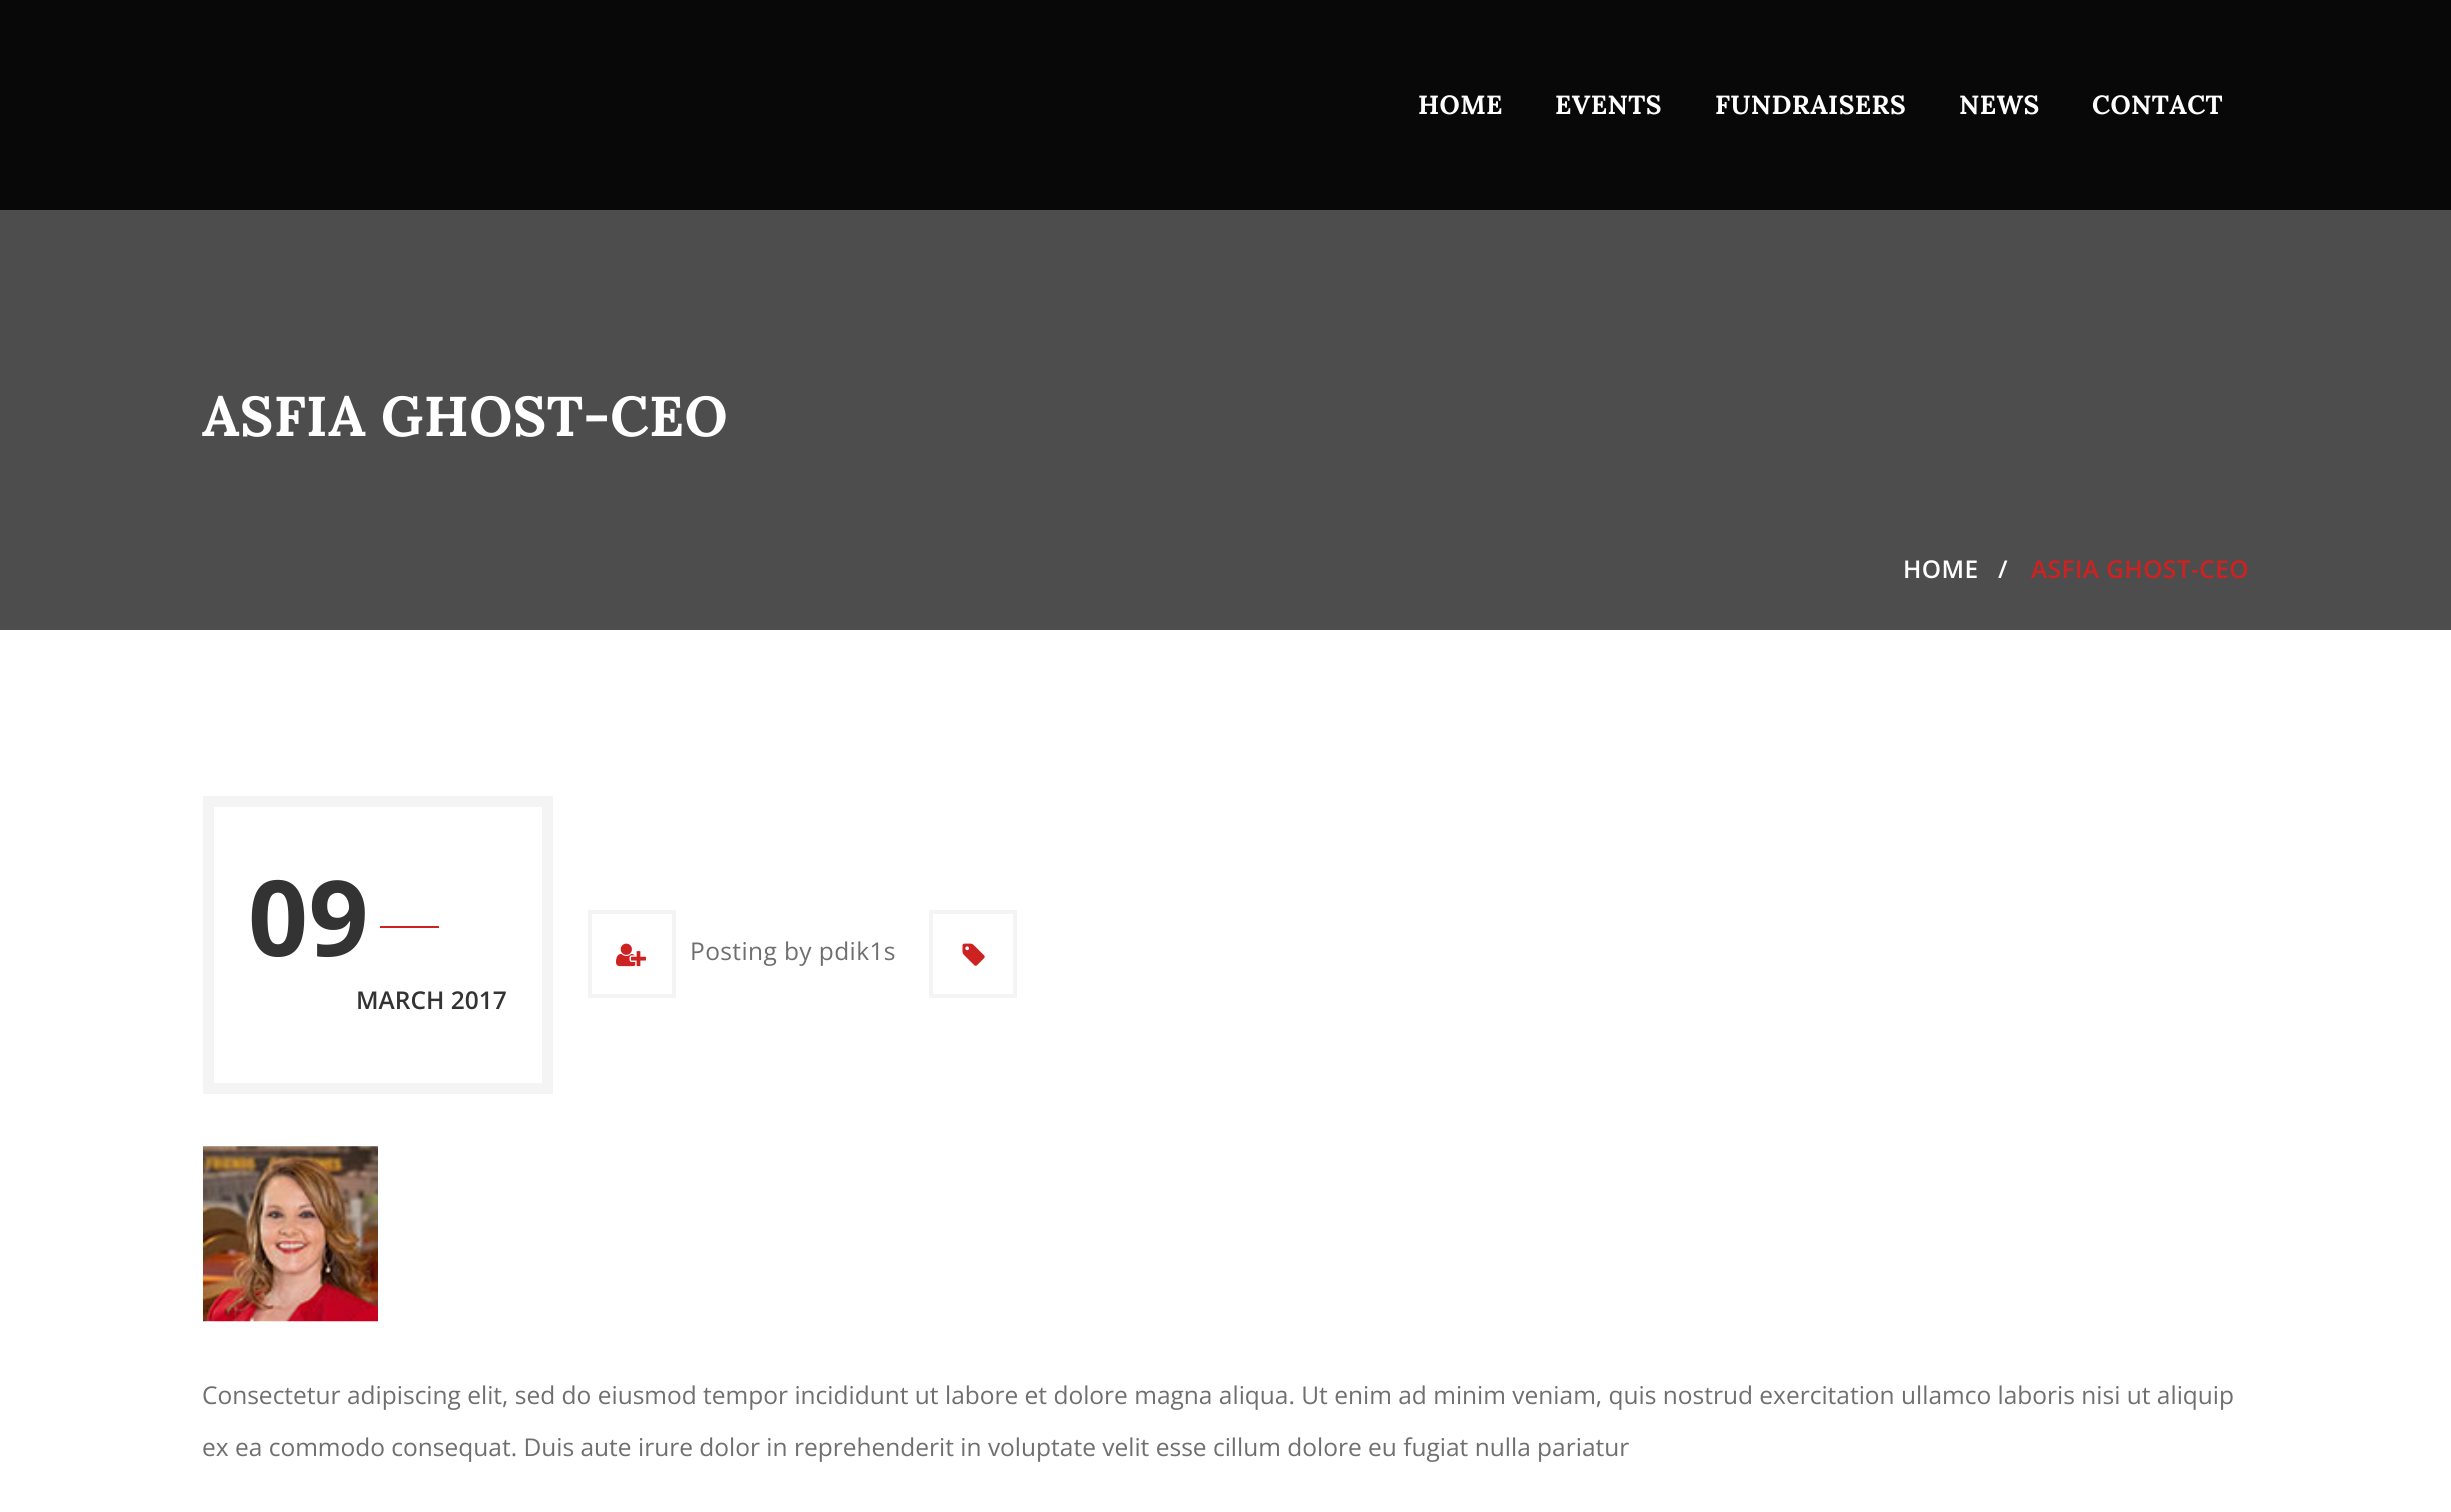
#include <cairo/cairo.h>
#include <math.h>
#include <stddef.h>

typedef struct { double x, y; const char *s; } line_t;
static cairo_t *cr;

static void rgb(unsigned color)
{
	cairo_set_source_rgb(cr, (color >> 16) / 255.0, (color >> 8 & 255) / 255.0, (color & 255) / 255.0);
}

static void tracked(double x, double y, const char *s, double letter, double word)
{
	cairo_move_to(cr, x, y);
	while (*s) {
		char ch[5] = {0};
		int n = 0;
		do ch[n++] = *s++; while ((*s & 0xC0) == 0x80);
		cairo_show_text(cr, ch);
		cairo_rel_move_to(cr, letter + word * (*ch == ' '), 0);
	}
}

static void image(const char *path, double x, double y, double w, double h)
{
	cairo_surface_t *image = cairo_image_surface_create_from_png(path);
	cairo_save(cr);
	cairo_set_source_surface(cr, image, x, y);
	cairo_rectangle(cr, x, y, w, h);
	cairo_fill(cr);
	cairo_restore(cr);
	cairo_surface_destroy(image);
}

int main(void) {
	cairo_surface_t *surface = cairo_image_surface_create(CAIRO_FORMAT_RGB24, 2451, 1512);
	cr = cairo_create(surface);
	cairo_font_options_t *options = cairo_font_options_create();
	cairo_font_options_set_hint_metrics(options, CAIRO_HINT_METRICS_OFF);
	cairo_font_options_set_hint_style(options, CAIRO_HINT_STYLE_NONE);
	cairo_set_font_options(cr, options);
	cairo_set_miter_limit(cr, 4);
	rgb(0xffffff);
	cairo_paint(cr);
	rgb(0x080808);
	cairo_rectangle(cr, 0, 0, 2451, 210);
	cairo_fill(cr);
	rgb(0x4d4d4d);
	cairo_rectangle(cr, 0, 210, 2451, 420);
	cairo_fill(cr);
	cairo_rectangle(cr, 208.5, 801.5, 339, 287);
	rgb(0xf4f4f4);
	cairo_set_line_width(cr, 11);
	cairo_stroke(cr);
	rgb(0xcd2122);
	cairo_rectangle(cr, 380, 926, 59, 2);
	cairo_fill(cr);
	cairo_rectangle(cr, 590, 912, 84, 84);
	rgb(0xf4f4f4);
	cairo_set_line_width(cr, 4);
	cairo_stroke(cr);
	image("img/1.png", 616, 943, 30, 24);
	cairo_rectangle(cr, 931, 912, 84, 84);
	cairo_stroke(cr);
	image("img/2.png", 962, 943, 23, 23);
	image("img/3.png", 203, 1146, 175, 176);
	cairo_select_font_face(cr, "Lora", CAIRO_FONT_SLANT_NORMAL, CAIRO_FONT_WEIGHT_BOLD);
	cairo_set_font_size(cr, 26.25);
	rgb(0xffffff);
	{
		static const line_t items[] = {
			{1418, 114, "HOME"},
			{1555, 114, "EVENTS"},
			{1715, 114, "FUNDRAISERS"},
			{1959, 114, "NEWS"},
			{2092, 114, "CONTACT"},
		};
		for (size_t i = 0; i < sizeof items / sizeof *items; i++) {
			tracked(items[i].x, items[i].y, items[i].s, 0.4, 0);
		}
	}
	cairo_set_font_size(cr, 56);
	tracked(202, 436, "ASFIA GHOST-CEO", 0.4, 0);
	cairo_select_font_face(cr, "Open Sans SemiBold", CAIRO_FONT_SLANT_NORMAL, CAIRO_FONT_WEIGHT_NORMAL);
	cairo_set_font_size(cr, 24.5);
	tracked(1903, 578, "HOME", 0.4, 0);
	tracked(1998, 578, "/", 0.4, 0);
	rgb(0xcd2122);
	tracked(2031, 578, "ASFIA GHOST-CEO", 0.4, 0);
	cairo_select_font_face(cr, "Open Sans", CAIRO_FONT_SLANT_NORMAL, CAIRO_FONT_WEIGHT_BOLD);
	cairo_set_font_size(cr, 105);
	rgb(0x333333);
	tracked(248, 956, "09", 0.4, 0);
	cairo_select_font_face(cr, "Open Sans SemiBold", CAIRO_FONT_SLANT_NORMAL, CAIRO_FONT_WEIGHT_NORMAL);
	cairo_set_font_size(cr, 24.5);
	cairo_move_to(cr, 356, 1009);
	cairo_show_text(cr, "MARCH 2017");
	cairo_select_font_face(cr, "Open Sans", CAIRO_FONT_SLANT_NORMAL, CAIRO_FONT_WEIGHT_NORMAL);
	rgb(0x6f6f6f);
	tracked(690, 960, "Posting by pdik1s", 0.4, 0);
	cairo_move_to(cr, 202, 1404);
	cairo_show_text(cr, "Consectetur adipiscing elit, sed do eiusmod tempor incididunt ut labore et dolore magna aliqua. Ut enim ad minim veniam, quis nostrud exercitation ullamco laboris nisi ut aliquip");
	cairo_move_to(cr, 202, 1456);
	cairo_show_text(cr, "ex ea commodo consequat. Duis aute irure dolor in reprehenderit in voluptate velit esse cillum dolore eu fugiat nulla pariatur");
	cairo_surface_write_to_png(surface, "page.png");
	cairo_font_options_destroy(options);
	cairo_destroy(cr);
	cairo_surface_destroy(surface);
	return 0;
}
